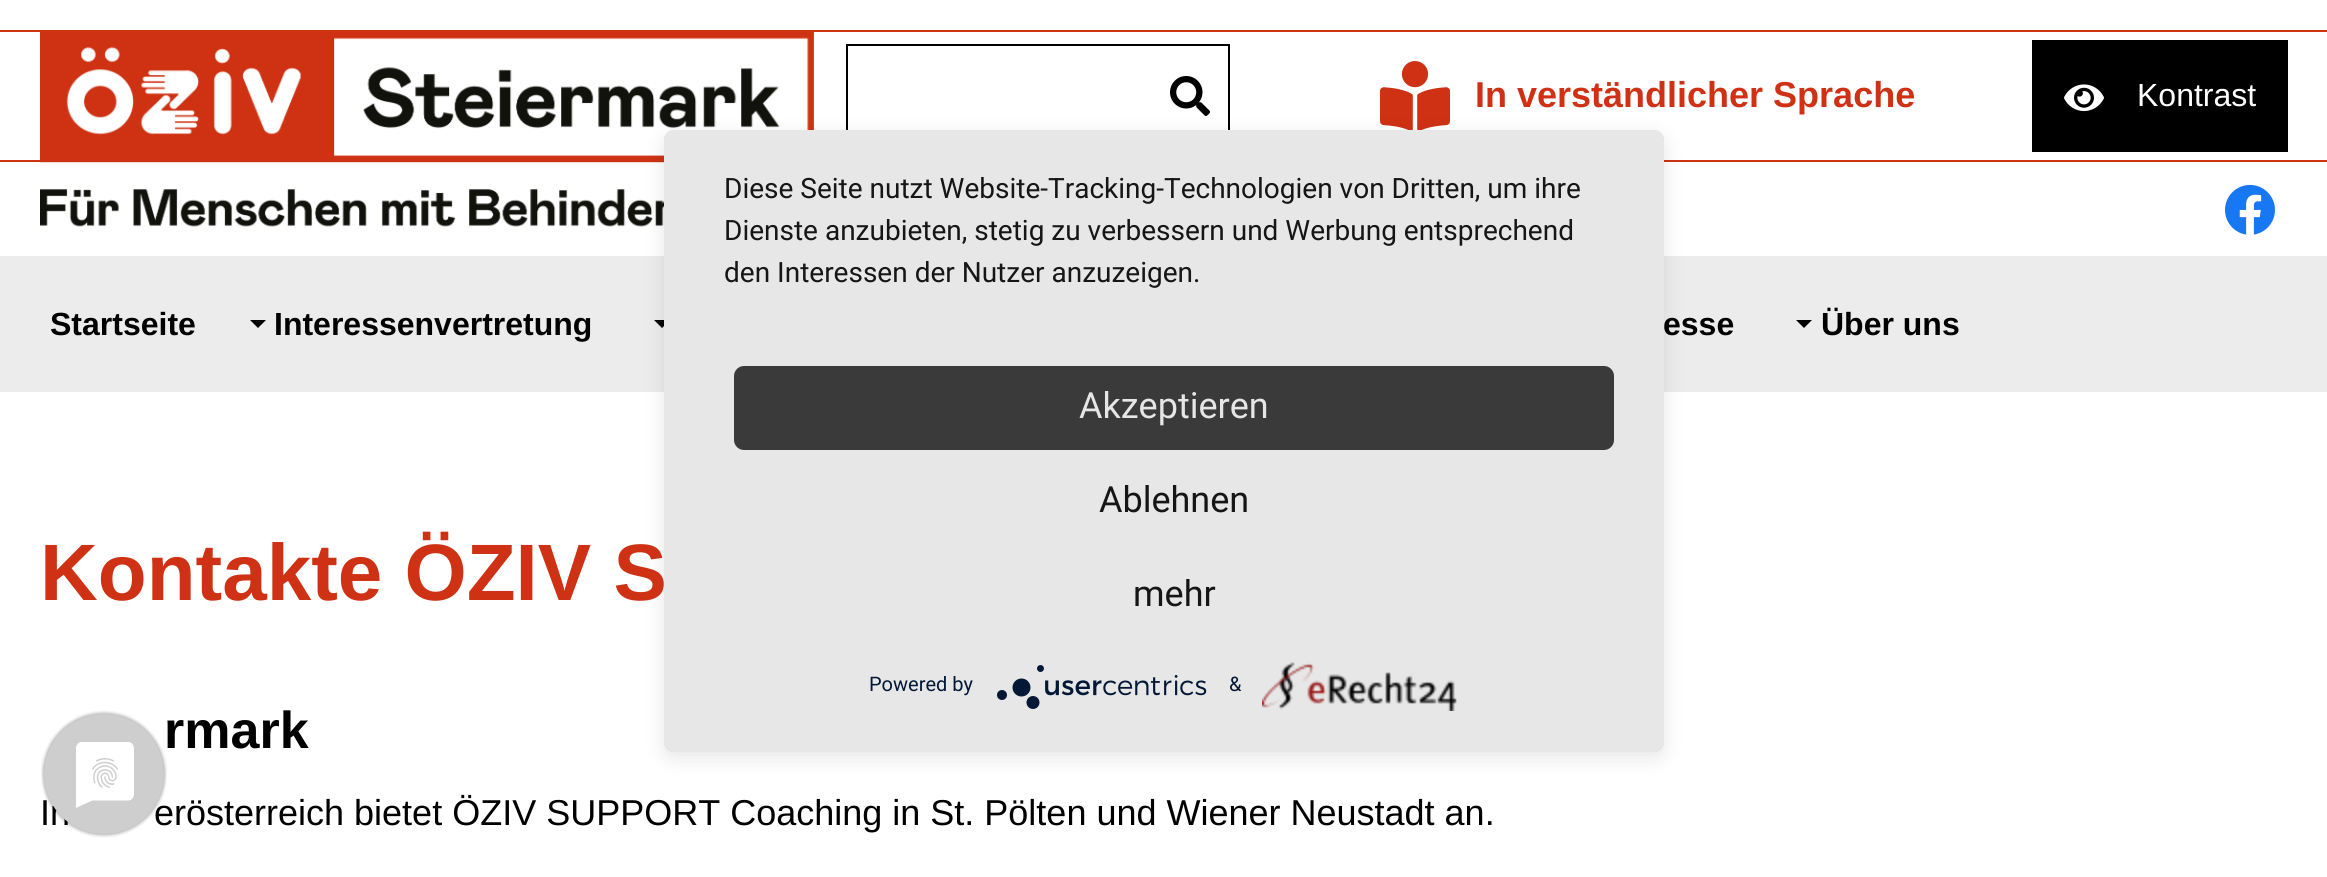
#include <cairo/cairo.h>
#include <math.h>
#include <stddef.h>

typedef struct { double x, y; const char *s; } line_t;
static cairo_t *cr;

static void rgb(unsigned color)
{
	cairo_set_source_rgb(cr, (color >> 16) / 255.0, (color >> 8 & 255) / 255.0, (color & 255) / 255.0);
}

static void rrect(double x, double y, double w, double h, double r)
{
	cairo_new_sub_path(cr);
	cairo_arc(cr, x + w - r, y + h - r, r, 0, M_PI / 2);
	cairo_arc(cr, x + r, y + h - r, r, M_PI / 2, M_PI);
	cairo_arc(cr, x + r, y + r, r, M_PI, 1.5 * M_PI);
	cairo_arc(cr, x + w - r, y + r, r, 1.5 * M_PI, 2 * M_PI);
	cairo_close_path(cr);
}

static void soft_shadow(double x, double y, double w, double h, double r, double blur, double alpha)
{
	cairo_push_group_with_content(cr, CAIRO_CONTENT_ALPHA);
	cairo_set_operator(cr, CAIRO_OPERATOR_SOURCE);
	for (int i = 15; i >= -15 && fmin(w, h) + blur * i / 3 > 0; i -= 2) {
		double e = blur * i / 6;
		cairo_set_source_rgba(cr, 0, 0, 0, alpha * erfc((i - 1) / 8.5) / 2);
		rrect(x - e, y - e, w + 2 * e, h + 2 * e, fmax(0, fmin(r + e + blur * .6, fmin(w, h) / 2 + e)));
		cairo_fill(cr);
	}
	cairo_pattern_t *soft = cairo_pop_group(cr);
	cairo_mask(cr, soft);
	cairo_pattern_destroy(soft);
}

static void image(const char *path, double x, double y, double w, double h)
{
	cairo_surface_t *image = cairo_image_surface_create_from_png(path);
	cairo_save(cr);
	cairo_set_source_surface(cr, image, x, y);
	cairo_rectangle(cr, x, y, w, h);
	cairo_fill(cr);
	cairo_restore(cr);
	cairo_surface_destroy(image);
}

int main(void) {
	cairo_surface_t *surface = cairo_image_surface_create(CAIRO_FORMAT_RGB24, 2327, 877);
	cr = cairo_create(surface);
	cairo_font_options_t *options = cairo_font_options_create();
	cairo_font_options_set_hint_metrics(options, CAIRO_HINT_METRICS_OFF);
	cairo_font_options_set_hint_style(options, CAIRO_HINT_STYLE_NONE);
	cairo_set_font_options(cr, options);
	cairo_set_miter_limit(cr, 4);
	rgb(0xffffff);
	cairo_paint(cr);
	rgb(0xce3114);
	cairo_rectangle(cr, 0, 30, 2327, 2);
	cairo_fill(cr);
	cairo_rectangle(cr, 0, 160, 2327, 2);
	cairo_fill(cr);
	image("img/1.png", 40, 32, 774, 195);
	cairo_rectangle(cr, 847, 45, 382, 102);
	rgb(0x000000);
	cairo_stroke(cr);
	image("img/2.png", 1170, 76, 40, 40);
	image("img/3.png", 1380, 61, 70, 69);
	cairo_rectangle(cr, 2032, 40, 256, 112);
	cairo_fill(cr);
	image("img/4.png", 2064, 84, 40, 28);
	image("img/5.png", 2225, 184, 50, 51);
	rgb(0xececec);
	cairo_rectangle(cr, 0, 256, 2327, 136);
	cairo_fill(cr);
	rgb(0x000000);
	cairo_new_path(cr);
	cairo_move_to(cr, 250, 320);
	cairo_line_to(cr, 266, 320);
	cairo_line_to(cr, 258, 328);
	cairo_close_path(cr);
	cairo_fill(cr);
	cairo_new_path(cr);
	cairo_move_to(cr, 654, 320);
	cairo_line_to(cr, 670, 320);
	cairo_line_to(cr, 662, 328);
	cairo_close_path(cr);
	cairo_fill(cr);
	cairo_new_path(cr);
	cairo_move_to(cr, 1796, 320);
	cairo_line_to(cr, 1812, 320);
	cairo_line_to(cr, 1804, 328);
	cairo_close_path(cr);
	cairo_fill(cr);
	rgb(0x000000);
	soft_shadow(664, 136, 1000, 622, 10, 10, 0.1);
	cairo_save(cr);
	rrect(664, 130, 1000, 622, 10);
	cairo_clip(cr);
	soft_shadow(664, 142, 1000, 622, 0, 36, 0.3);
	cairo_restore(cr);
	rgb(0xe7e7e7);
	rrect(664, 130, 1000, 622, 10);
	cairo_fill(cr);
	rgb(0x3a3a3a);
	rrect(734, 366, 880, 84, 10);
	cairo_fill(cr);
	image("img/6.png", 997, 665, 210, 44);
	image("img/7.png", 1262, 662, 195, 49);
	cairo_select_font_face(cr, "Liberation Sans", CAIRO_FONT_SLANT_NORMAL, CAIRO_FONT_WEIGHT_BOLD);
	cairo_set_font_size(cr, 36);
	rgb(0xce3114);
	cairo_move_to(cr, 1475, 107);
	cairo_show_text(cr, "In verständlicher Sprache");
	cairo_select_font_face(cr, "Liberation Sans", CAIRO_FONT_SLANT_NORMAL, CAIRO_FONT_WEIGHT_NORMAL);
	cairo_set_font_size(cr, 32);
	rgb(0xffffff);
	cairo_move_to(cr, 2137, 106);
	cairo_show_text(cr, "Kontrast");
	cairo_select_font_face(cr, "Liberation Sans", CAIRO_FONT_SLANT_NORMAL, CAIRO_FONT_WEIGHT_BOLD);
	rgb(0x000000);
	{
		static const line_t items[] = {
			{50, 335, "Startseite"},
			{274, 335, "Interessenvertretung"},
			{1663, 335, "esse"},
			{1821, 335, "Über uns"},
		};
		for (size_t i = 0; i < sizeof items / sizeof *items; i++) {
			cairo_move_to(cr, items[i].x, items[i].y);
			cairo_show_text(cr, items[i].s);
		}
	}
	cairo_set_font_size(cr, 80);
	rgb(0xce3114);
	cairo_move_to(cr, 40, 600);
	cairo_show_text(cr, "Kontakte ÖZIV S");
	cairo_set_font_size(cr, 52);
	rgb(0x000000);
	cairo_move_to(cr, 164, 748);
	cairo_show_text(cr, "rmark");
	cairo_select_font_face(cr, "Liberation Sans", CAIRO_FONT_SLANT_NORMAL, CAIRO_FONT_WEIGHT_NORMAL);
	cairo_set_font_size(cr, 36);
	cairo_move_to(cr, 40, 825);
	cairo_show_text(cr, "In");
	cairo_move_to(cr, 154, 825);
	cairo_show_text(cr, "erösterreich bietet ÖZIV SUPPORT Coaching in St. Pölten und Wiener Neustadt an.");
	cairo_select_font_face(cr, "Roboto", CAIRO_FONT_SLANT_NORMAL, CAIRO_FONT_WEIGHT_NORMAL);
	cairo_set_font_size(cr, 28);
	rgb(0x161616);
	{
		static const line_t items[] = {
			{724, 198, "Diese Seite nutzt Website-Tracking-Technologien von Dritten, um ihre"},
			{724, 240, "Dienste anzubieten, stetig zu verbessern und Werbung entsprechend"},
			{724, 282, "den Interessen der Nutzer anzuzeigen."},
		};
		for (size_t i = 0; i < sizeof items / sizeof *items; i++) {
			cairo_move_to(cr, items[i].x, items[i].y);
			cairo_show_text(cr, items[i].s);
		}
	}
	cairo_set_font_size(cr, 36);
	rgb(0xe6e6e6);
	cairo_move_to(cr, 1079, 418);
	cairo_show_text(cr, "Akzeptieren");
	rgb(0x161616);
	cairo_move_to(cr, 1099, 512);
	cairo_show_text(cr, "Ablehnen");
	cairo_move_to(cr, 1133, 606);
	cairo_show_text(cr, "mehr");
	cairo_set_font_size(cr, 20);
	rgb(0x021836);
	cairo_move_to(cr, 869, 691);
	cairo_show_text(cr, "Powered by");
	cairo_move_to(cr, 1229, 691);
	cairo_show_text(cr, "&");
	image("img/8.png", 41, 710, 126, 128);
	cairo_surface_write_to_png(surface, "page.png");
	cairo_font_options_destroy(options);
	cairo_destroy(cr);
	cairo_surface_destroy(surface);
	return 0;
}
